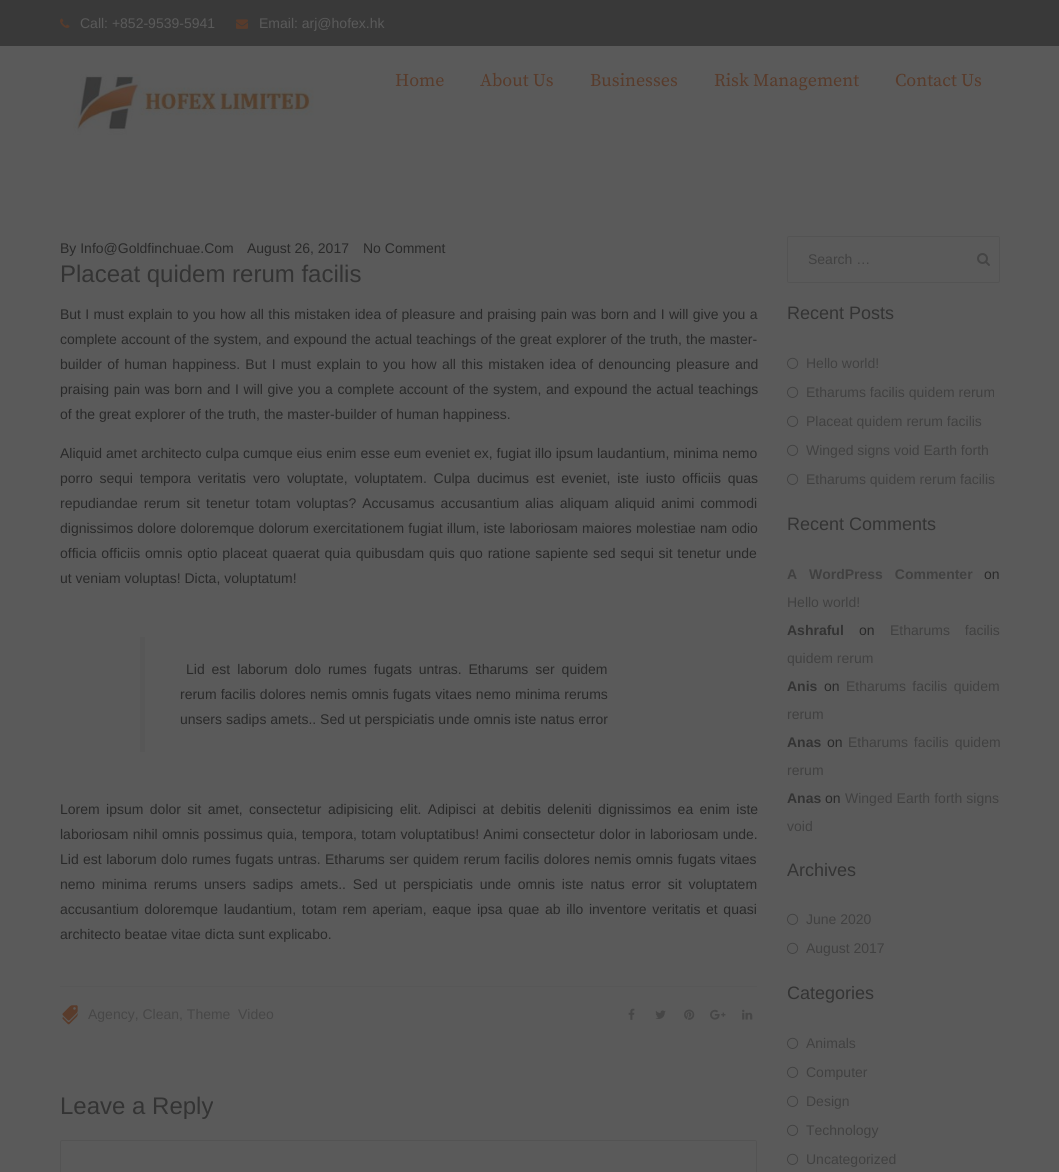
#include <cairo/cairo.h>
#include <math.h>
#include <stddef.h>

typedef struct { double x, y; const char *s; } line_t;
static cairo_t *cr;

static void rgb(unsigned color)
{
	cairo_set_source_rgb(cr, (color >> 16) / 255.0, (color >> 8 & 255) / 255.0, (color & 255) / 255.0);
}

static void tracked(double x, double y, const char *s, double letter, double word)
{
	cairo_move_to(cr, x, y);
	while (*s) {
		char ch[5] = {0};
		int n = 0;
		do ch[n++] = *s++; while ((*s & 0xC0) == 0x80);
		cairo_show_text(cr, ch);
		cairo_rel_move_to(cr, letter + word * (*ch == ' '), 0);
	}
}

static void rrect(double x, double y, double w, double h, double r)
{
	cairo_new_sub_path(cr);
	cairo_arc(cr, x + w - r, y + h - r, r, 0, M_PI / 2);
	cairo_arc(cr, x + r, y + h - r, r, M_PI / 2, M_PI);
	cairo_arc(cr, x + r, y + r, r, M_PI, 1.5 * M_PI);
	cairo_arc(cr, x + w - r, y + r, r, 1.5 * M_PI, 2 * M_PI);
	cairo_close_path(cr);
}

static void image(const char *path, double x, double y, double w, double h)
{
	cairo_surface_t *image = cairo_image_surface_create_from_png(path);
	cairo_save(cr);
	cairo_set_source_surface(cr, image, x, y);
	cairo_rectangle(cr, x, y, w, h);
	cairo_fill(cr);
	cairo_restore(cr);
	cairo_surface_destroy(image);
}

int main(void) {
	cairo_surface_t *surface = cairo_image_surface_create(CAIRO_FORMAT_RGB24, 1059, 1172);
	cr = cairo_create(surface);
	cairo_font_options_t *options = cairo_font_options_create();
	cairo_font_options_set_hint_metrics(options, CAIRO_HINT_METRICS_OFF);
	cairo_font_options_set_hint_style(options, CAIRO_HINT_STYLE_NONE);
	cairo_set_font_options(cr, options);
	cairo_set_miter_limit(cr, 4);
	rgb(0x5a5a5a);
	cairo_paint(cr);
	rgb(0x393939);
	cairo_rectangle(cr, 0, 0, 1059, 46);
	cairo_fill(cr);
	image("img/1.png", 60, 18, 10, 10);
	image("img/2.png", 236, 19, 12, 10);
	image("img/3.png", 73, 74, 241, 61);
	rgb(0x575757);
	cairo_rectangle(cr, 140, 637, 5, 115);
	cairo_fill(cr);
	cairo_rectangle(cr, 60, 986, 697, 1);
	cairo_fill(cr);
	image("img/4.png", 62, 1005, 16, 20);
	image("img/5.png", 628, 1008, 7, 12);
	image("img/6.png", 655, 1010, 11, 9);
	image("img/7.png", 684, 1009, 11, 11);
	image("img/8.png", 710, 1009, 16, 11);
	image("img/9.png", 742, 1009, 11, 11);
	rrect(60.5, 1140.5, 696, 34, 1.5);
	rgb(0x535353);
	cairo_set_line_width(cr, 1);
	cairo_stroke(cr);
	rrect(787.5, 236.5, 212, 46, 1.5);
	cairo_stroke(cr);
	image("img/10.png", 977, 253, 13, 13);
	image("img/11.png", 787, 357, 12, 12);
	image("img/11.png", 787, 386, 12, 12);
	image("img/11.png", 787, 415, 12, 12);
	image("img/11.png", 787, 444, 12, 12);
	image("img/11.png", 787, 473, 12, 12);
	image("img/11.png", 787, 913, 12, 12);
	image("img/11.png", 787, 942, 12, 12);
	image("img/11.png", 787, 1037, 12, 12);
	image("img/11.png", 787, 1066, 12, 12);
	image("img/11.png", 787, 1095, 12, 12);
	image("img/11.png", 787, 1124, 12, 12);
	image("img/11.png", 787, 1153, 12, 12);
	cairo_select_font_face(cr, "Liberation Sans", CAIRO_FONT_SLANT_NORMAL, CAIRO_FONT_WEIGHT_NORMAL);
	cairo_set_font_size(cr, 14);
	rgb(0x5a5a5a);
	cairo_move_to(cr, 80, 28);
	cairo_show_text(cr, "Call: +852-9539-5941");
	cairo_move_to(cr, 259, 28);
	cairo_show_text(cr, "Email: arj@hofex.hk");
	cairo_select_font_face(cr, "Source Serif Pro", CAIRO_FONT_SLANT_NORMAL, CAIRO_FONT_WEIGHT_NORMAL);
	cairo_set_font_size(cr, 18);
	rgb(0x583b2b);
	{
		static const line_t items[] = {
			{395, 86, "Home"},
			{480, 86, "About Us"},
			{590, 86, "Businesses"},
			{714, 86, "Risk Management"},
			{895, 86, "Contact Us"},
		};
		for (size_t i = 0; i < sizeof items / sizeof *items; i++) {
			cairo_move_to(cr, items[i].x, items[i].y);
			cairo_show_text(cr, items[i].s);
		}
	}
	cairo_select_font_face(cr, "Liberation Sans", CAIRO_FONT_SLANT_NORMAL, CAIRO_FONT_WEIGHT_NORMAL);
	cairo_set_font_size(cr, 14);
	rgb(0x292929);
	{
		static const line_t items[] = {
			{60, 253, "By Info@Goldfinchuae.Com"},
			{247, 253, "August 26, 2017"},
			{363, 253, "No Comment"},
		};
		for (size_t i = 0; i < sizeof items / sizeof *items; i++) {
			cairo_move_to(cr, items[i].x, items[i].y);
			cairo_show_text(cr, items[i].s);
		}
	}
	cairo_set_font_size(cr, 24);
	rgb(0x333333);
	cairo_move_to(cr, 60, 282);
	cairo_show_text(cr, "Placeat quidem rerum facilis");
	cairo_set_font_size(cr, 14);
	rgb(0x292929);
	tracked(60, 319, "But I must explain to you how all this mistaken idea of pleasure and praising pain was born and I will give you a", 0, 0.45);
	tracked(60, 344, "complete account of the system, and expound the actual teachings of the great explorer of the truth, the master-", 0, 0.25);
	tracked(60, 369, "builder of human happiness. But I must explain to you how all this mistaken idea of denouncing pleasure and", 0, 1.4);
	tracked(60, 394, "praising pain was born and I will give you a complete account of the system, and expound the actual teachings", 0, 0.75);
	cairo_move_to(cr, 60, 419);
	cairo_show_text(cr, "of the great explorer of the truth, the master-builder of human happiness.");
	cairo_move_to(cr, 60, 458);
	cairo_show_text(cr, "Aliquid amet architecto culpa cumque eius enim esse eum eveniet ex, fugiat illo ipsum laudantium, minima nemo");
	tracked(60, 483, "porro sequi tempora veritatis vero voluptate, voluptatem. Culpa ducimus est eveniet, iste iusto officiis quas", 0, 2.9);
	tracked(60, 508, "repudiandae rerum sit tenetur totam voluptas? Accusamus accusantium alias aliquam aliquid animi commodi", 0, 2);
	tracked(60, 533, "dignissimos dolore doloremque dolorum exercitationem fugiat illum, iste laboriosam maiores molestiae nam odio", 0, 0.25);
	tracked(60, 558, "officia officiis omnis optio placeat quaerat quia quibusdam quis quo ratione sapiente sed sequi sit tenetur unde", 0, 0.9);
	cairo_move_to(cr, 60, 583);
	cairo_show_text(cr, "ut veniam voluptas! Dicta, voluptatum!");
	tracked(186, 674, "Lid est laborum dolo rumes fugats untras. Etharums ser quidem", 0, 3);
	tracked(180, 699, "rerum facilis dolores nemis omnis fugats vitaes nemo minima rerums", 0, 0.25);
	cairo_move_to(cr, 180, 724);
	cairo_show_text(cr, "unsers sadips amets.. Sed ut perspiciatis unde omnis iste natus error");
	tracked(60, 814, "Lorem ipsum dolor sit amet, consectetur adipisicing elit. Adipisci at debitis deleniti dignissimos ea enim iste", 0, 2.5);
	tracked(60, 839, "laboriosam nihil omnis possimus quia, tempora, totam voluptatibus! Animi consectetur dolor in laboriosam unde.", 0, 0.4);
	tracked(60, 864, "Lid est laborum dolo rumes fugats untras. Etharums ser quidem rerum facilis dolores nemis omnis fugats vitaes", 0, 0.5);
	tracked(60, 889, "nemo minima rerums unsers sadips amets.. Sed ut perspiciatis unde omnis iste natus error sit voluptatem", 0, 2.9);
	tracked(60, 914, "accusantium doloremque laudantium, totam rem aperiam, eaque ipsa quae ab illo inventore veritatis et quasi", 0, 1.75);
	cairo_move_to(cr, 60, 939);
	cairo_show_text(cr, "architecto beatae vitae dicta sunt explicabo.");
	rgb(0x464646);
	cairo_move_to(cr, 88, 1019);
	cairo_show_text(cr, "Agency, Clean, Theme");
	cairo_move_to(cr, 238, 1019);
	cairo_show_text(cr, "Video");
	cairo_set_font_size(cr, 24);
	rgb(0x333333);
	cairo_move_to(cr, 60, 1114);
	cairo_show_text(cr, "Leave a Reply");
	cairo_set_font_size(cr, 14);
	rgb(0x404040);
	cairo_move_to(cr, 808, 264);
	cairo_show_text(cr, "Search …");
	cairo_set_font_size(cr, 18);
	rgb(0x333333);
	cairo_move_to(cr, 787, 319);
	cairo_show_text(cr, "Recent Posts");
	cairo_set_font_size(cr, 14);
	rgb(0x404040);
	{
		static const line_t items[] = {
			{806, 368, "Hello world!"},
			{806, 397, "Etharums facilis quidem rerum"},
			{806, 426, "Placeat quidem rerum facilis"},
			{806, 455, "Winged signs void Earth forth"},
			{806, 484, "Etharums quidem rerum facilis"},
		};
		for (size_t i = 0; i < sizeof items / sizeof *items; i++) {
			cairo_move_to(cr, items[i].x, items[i].y);
			cairo_show_text(cr, items[i].s);
		}
	}
	cairo_set_font_size(cr, 18);
	rgb(0x333333);
	cairo_move_to(cr, 787, 530);
	cairo_show_text(cr, "Recent Comments");
	cairo_select_font_face(cr, "Liberation Sans", CAIRO_FONT_SLANT_NORMAL, CAIRO_FONT_WEIGHT_BOLD);
	cairo_set_font_size(cr, 14);
	rgb(0x404040);
	tracked(787, 579, "A WordPress Commenter", 0, 8);
	cairo_select_font_face(cr, "Liberation Sans", CAIRO_FONT_SLANT_NORMAL, CAIRO_FONT_WEIGHT_NORMAL);
	rgb(0x292929);
	cairo_move_to(cr, 984, 579);
	cairo_show_text(cr, "on");
	rgb(0x404040);
	cairo_move_to(cr, 787, 607);
	cairo_show_text(cr, "Hello world!");
	cairo_select_font_face(cr, "Liberation Sans", CAIRO_FONT_SLANT_NORMAL, CAIRO_FONT_WEIGHT_BOLD);
	rgb(0x333333);
	cairo_move_to(cr, 787, 635);
	cairo_show_text(cr, "Ashraful");
	cairo_select_font_face(cr, "Liberation Sans", CAIRO_FONT_SLANT_NORMAL, CAIRO_FONT_WEIGHT_NORMAL);
	rgb(0x292929);
	cairo_move_to(cr, 859, 635);
	cairo_show_text(cr, "on");
	rgb(0x404040);
	tracked(890, 635, "Etharums facilis", 0, 11);
	cairo_move_to(cr, 787, 663);
	cairo_show_text(cr, "quidem rerum");
	cairo_select_font_face(cr, "Liberation Sans", CAIRO_FONT_SLANT_NORMAL, CAIRO_FONT_WEIGHT_BOLD);
	rgb(0x333333);
	cairo_move_to(cr, 787, 691);
	cairo_show_text(cr, "Anis");
	cairo_select_font_face(cr, "Liberation Sans", CAIRO_FONT_SLANT_NORMAL, CAIRO_FONT_WEIGHT_NORMAL);
	rgb(0x292929);
	cairo_move_to(cr, 824, 691);
	cairo_show_text(cr, "on");
	rgb(0x404040);
	tracked(846, 691, "Etharums facilis quidem", 0, 2.5);
	cairo_move_to(cr, 787, 719);
	cairo_show_text(cr, "rerum");
	cairo_select_font_face(cr, "Liberation Sans", CAIRO_FONT_SLANT_NORMAL, CAIRO_FONT_WEIGHT_BOLD);
	rgb(0x333333);
	cairo_move_to(cr, 787, 747);
	cairo_show_text(cr, "Anas");
	cairo_select_font_face(cr, "Liberation Sans", CAIRO_FONT_SLANT_NORMAL, CAIRO_FONT_WEIGHT_NORMAL);
	rgb(0x292929);
	cairo_move_to(cr, 827, 747);
	cairo_show_text(cr, "on");
	rgb(0x404040);
	tracked(848, 747, "Etharums facilis quidem", 0, 2);
	cairo_move_to(cr, 787, 775);
	cairo_show_text(cr, "rerum");
	cairo_select_font_face(cr, "Liberation Sans", CAIRO_FONT_SLANT_NORMAL, CAIRO_FONT_WEIGHT_BOLD);
	rgb(0x333333);
	cairo_move_to(cr, 787, 803);
	cairo_show_text(cr, "Anas");
	cairo_select_font_face(cr, "Liberation Sans", CAIRO_FONT_SLANT_NORMAL, CAIRO_FONT_WEIGHT_NORMAL);
	rgb(0x292929);
	cairo_move_to(cr, 825, 803);
	cairo_show_text(cr, "on");
	rgb(0x404040);
	tracked(845, 803, "Winged Earth forth signs", 0, 0.25);
	cairo_move_to(cr, 787, 831);
	cairo_show_text(cr, "void");
	cairo_set_font_size(cr, 18);
	rgb(0x333333);
	cairo_move_to(cr, 787, 876);
	cairo_show_text(cr, "Archives");
	cairo_set_font_size(cr, 14);
	rgb(0x404040);
	cairo_move_to(cr, 806, 924);
	cairo_show_text(cr, "June 2020");
	cairo_move_to(cr, 806, 953);
	cairo_show_text(cr, "August 2017");
	cairo_set_font_size(cr, 18);
	rgb(0x333333);
	cairo_move_to(cr, 787, 999);
	cairo_show_text(cr, "Categories");
	cairo_set_font_size(cr, 14);
	rgb(0x404040);
	{
		static const line_t items[] = {
			{806, 1048, "Animals"},
			{806, 1077, "Computer"},
			{806, 1106, "Design"},
			{806, 1135, "Technology"},
			{806, 1164, "Uncategorized"},
		};
		for (size_t i = 0; i < sizeof items / sizeof *items; i++) {
			cairo_move_to(cr, items[i].x, items[i].y);
			cairo_show_text(cr, items[i].s);
		}
	}
	cairo_surface_write_to_png(surface, "page.png");
	cairo_font_options_destroy(options);
	cairo_destroy(cr);
	cairo_surface_destroy(surface);
	return 0;
}
